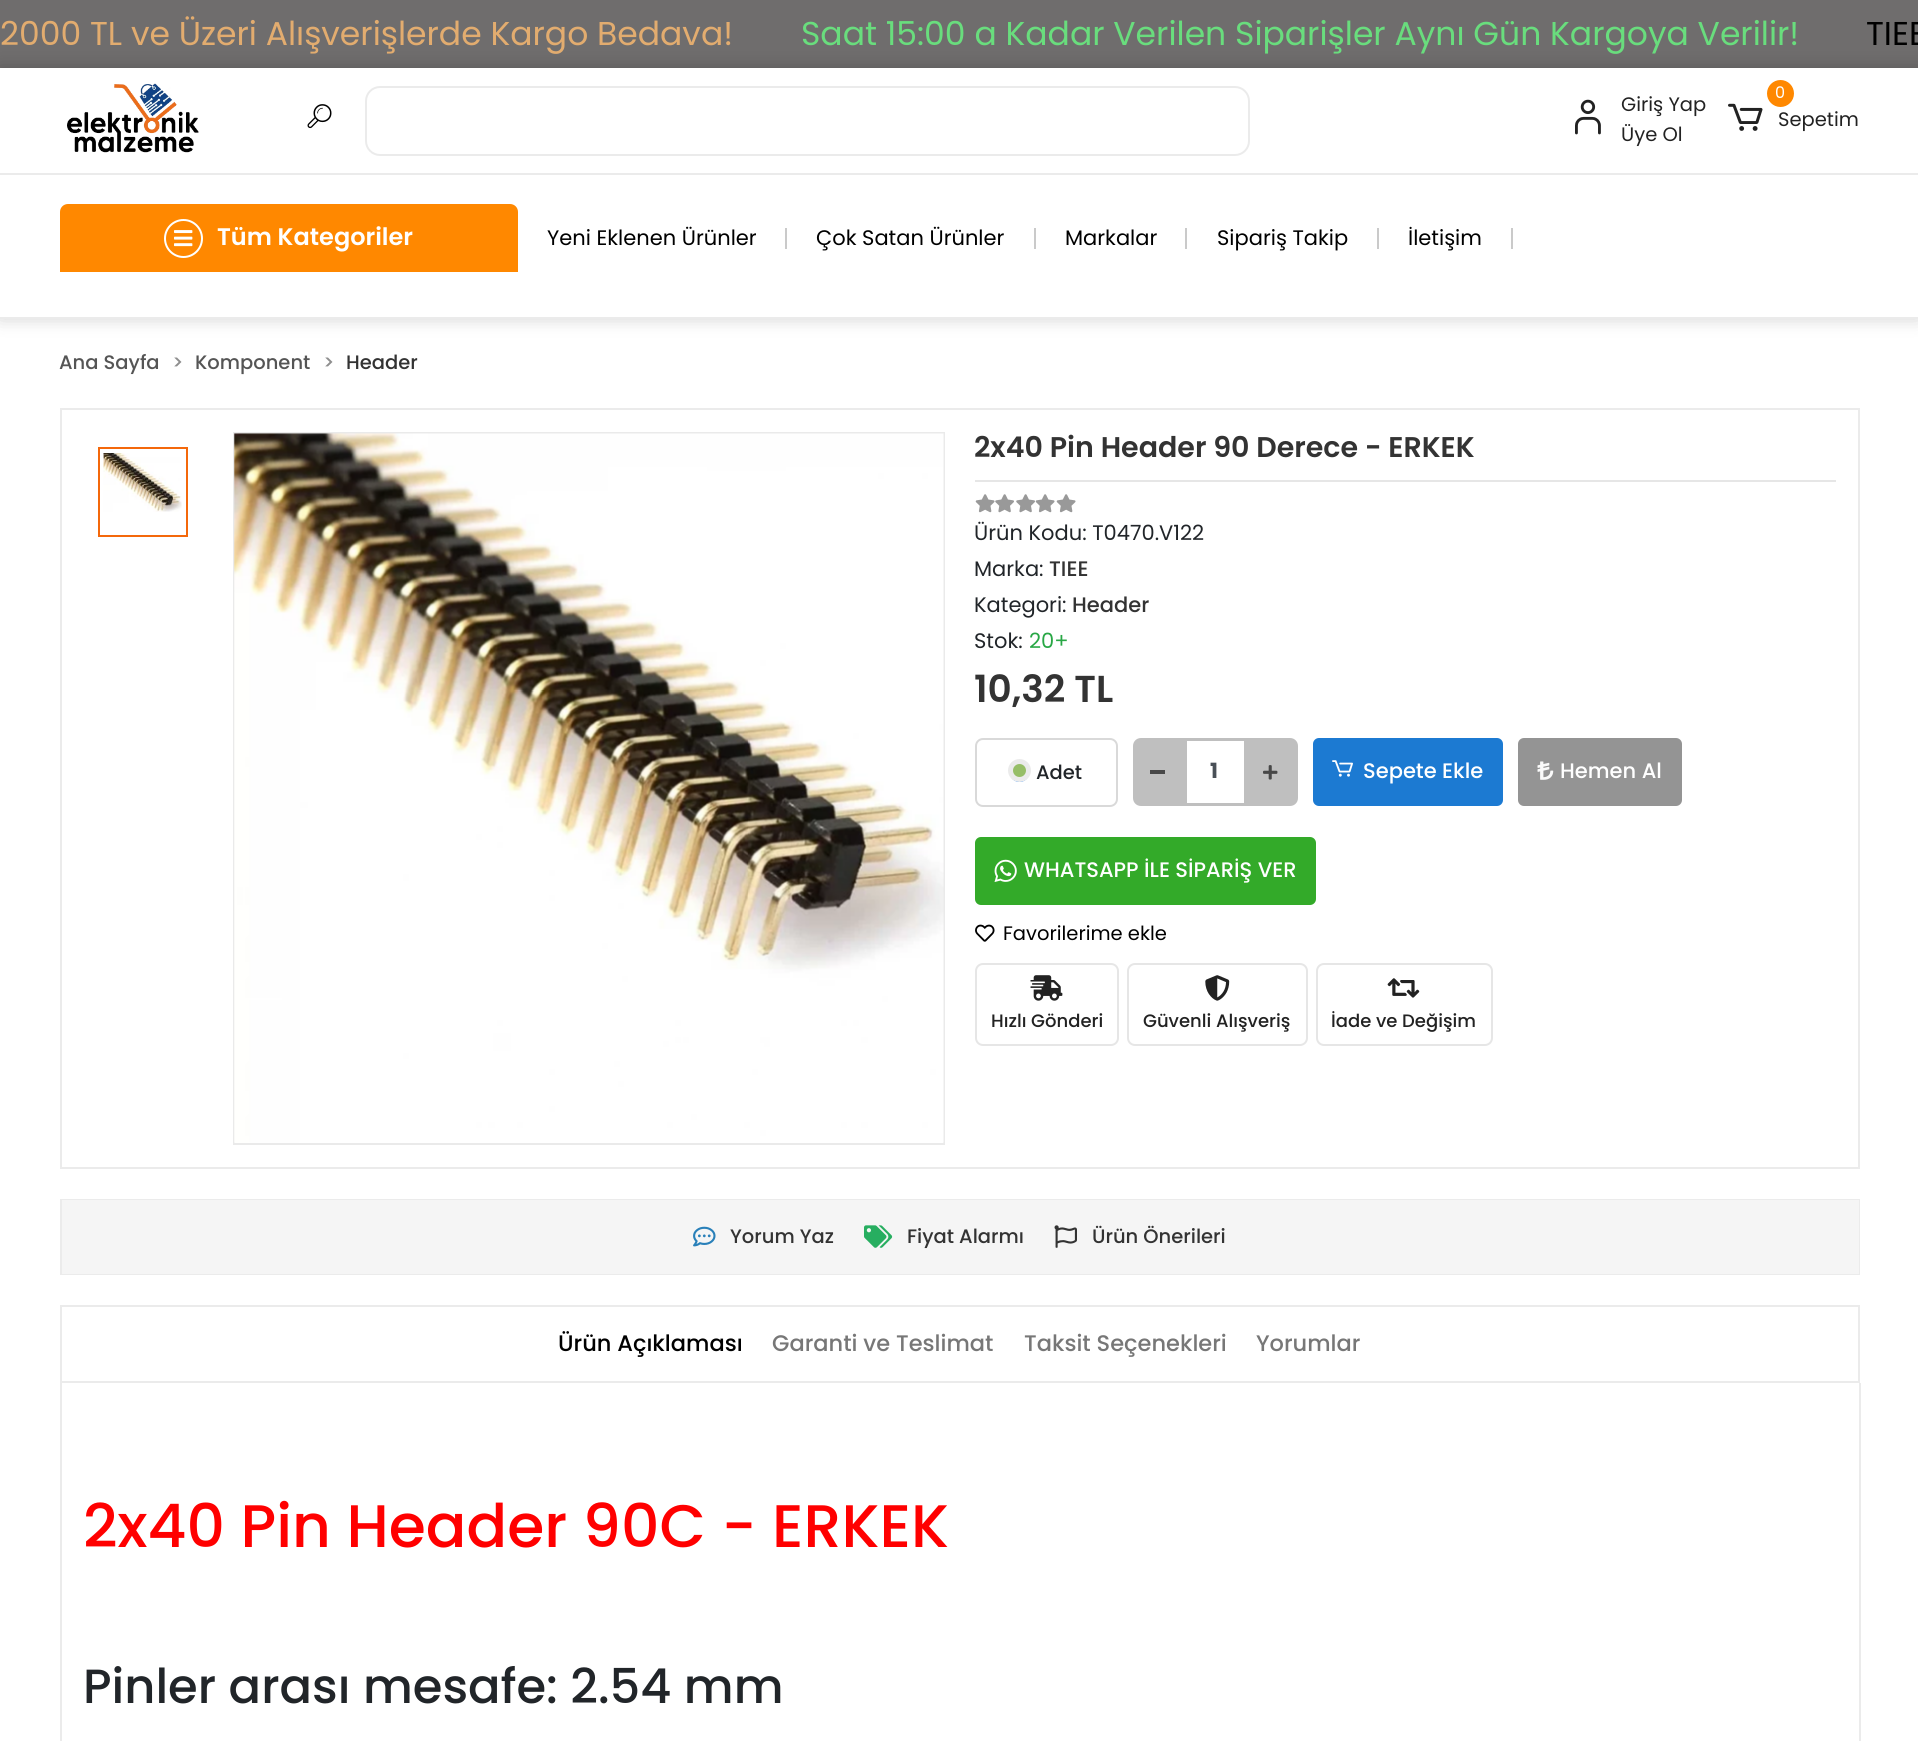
#include <cairo/cairo.h>
#include <math.h>
#include <stddef.h>

typedef struct { double x, y; const char *s; } line_t;
typedef struct { double x, y, w, h; unsigned color; } box_t;
static cairo_t *cr;

static void rgb(unsigned color)
{
	cairo_set_source_rgb(cr, (color >> 16) / 255.0, (color >> 8 & 255) / 255.0, (color & 255) / 255.0);
}

static void rrect(double x, double y, double w, double h, double r)
{
	cairo_new_sub_path(cr);
	cairo_arc(cr, x + w - r, y + h - r, r, 0, M_PI / 2);
	cairo_arc(cr, x + r, y + h - r, r, M_PI / 2, M_PI);
	cairo_arc(cr, x + r, y + r, r, M_PI, 1.5 * M_PI);
	cairo_arc(cr, x + w - r, y + r, r, 1.5 * M_PI, 2 * M_PI);
	cairo_close_path(cr);
}

static void soft_shadow(double x, double y, double w, double h, double r, double blur, double alpha)
{
	cairo_push_group_with_content(cr, CAIRO_CONTENT_ALPHA);
	cairo_set_operator(cr, CAIRO_OPERATOR_SOURCE);
	for (int i = 15; i >= -15 && fmin(w, h) + blur * i / 3 > 0; i -= 2) {
		double e = blur * i / 6;
		cairo_set_source_rgba(cr, 0, 0, 0, alpha * erfc((i - 1) / 8.5) / 2);
		rrect(x - e, y - e, w + 2 * e, h + 2 * e, fmax(0, fmin(r + e + blur * .6, fmin(w, h) / 2 + e)));
		cairo_fill(cr);
	}
	cairo_pattern_t *soft = cairo_pop_group(cr);
	cairo_mask(cr, soft);
	cairo_pattern_destroy(soft);
}

static void image(const char *path, double x, double y, double w, double h)
{
	cairo_surface_t *image = cairo_image_surface_create_from_png(path);
	cairo_save(cr);
	cairo_set_source_surface(cr, image, x, y);
	cairo_rectangle(cr, x, y, w, h);
	cairo_fill(cr);
	cairo_restore(cr);
	cairo_surface_destroy(image);
}

int main(void) {
	cairo_surface_t *surface = cairo_image_surface_create(CAIRO_FORMAT_RGB24, 1918, 1741);
	cr = cairo_create(surface);
	cairo_font_options_t *options = cairo_font_options_create();
	cairo_font_options_set_hint_metrics(options, CAIRO_HINT_METRICS_OFF);
	cairo_font_options_set_hint_style(options, CAIRO_HINT_STYLE_NONE);
	cairo_set_font_options(cr, options);
	cairo_set_miter_limit(cr, 4);
	rgb(0xffffff);
	cairo_paint(cr);
	rgb(0x6f6d6d);
	cairo_rectangle(cr, 0, 0, 1918, 68);
	cairo_fill(cr);
	cairo_save(cr);
	cairo_set_fill_rule(cr, CAIRO_FILL_RULE_EVEN_ODD);
	cairo_new_path(cr);
	cairo_move_to(cr, 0, 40);
	cairo_line_to(cr, 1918, 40);
	cairo_line_to(cr, 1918, 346);
	cairo_line_to(cr, 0, 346);
	cairo_close_path(cr);
	cairo_move_to(cr, 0, 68);
	cairo_line_to(cr, 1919, 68);
	cairo_line_to(cr, 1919, 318);
	cairo_line_to(cr, 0, 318);
	cairo_close_path(cr);
	cairo_clip(cr);
	rgb(0x000000);
	soft_shadow(0, 68, 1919, 250, 0, 9, 0.2);
	cairo_restore(cr);
	image("img/1.png", 67, 83, 132, 70);
	rrect(366, 87, 883, 68, 14);
	rgb(0xebebeb);
	cairo_stroke(cr);
	image("img/2.png", 307, 104, 25, 25);
	image("img/3.png", 1575, 99, 26, 36);
	rgb(0xff8800);
	cairo_arc(cr, 1780.5, 93.5, 13.5, 0, 2 * M_PI);
	cairo_fill(cr);
	image("img/4.png", 1728, 103, 35, 28);
	rgb(0xebebeb);
	cairo_rectangle(cr, 0, 173, 1918, 2);
	cairo_fill(cr);
	cairo_rectangle(cr, 0, 317, 1918, 2);
	cairo_fill(cr);
	rgb(0xff8800);
	cairo_new_path(cr);
	cairo_move_to(cr, 68, 204);
	cairo_line_to(cr, 510, 204);
	cairo_curve_to(cr, 514.5, 204, 518, 207.5, 518, 212);
	cairo_line_to(cr, 518, 272);
	cairo_line_to(cr, 60, 272);
	cairo_line_to(cr, 60, 212);
	cairo_curve_to(cr, 60, 207.5, 63.5, 204, 68, 204);
	cairo_close_path(cr);
	cairo_fill(cr);
	cairo_arc(cr, 183.5, 238.5, 18.5, 0, 2 * M_PI);
	rgb(0xffffff);
	cairo_stroke(cr);
	image("img/5.png", 174, 230, 19, 17);
	{
		static const box_t items[] = {
			{785, 228, 2, 21, 0xcacaca},
			{1034, 228, 2, 21, 0xcacaca},
			{1185, 228, 2, 21, 0xcacaca},
			{1377, 228, 2, 21, 0xcacaca},
			{1511, 228, 2, 21, 0xcacaca},
		};
		for (size_t i = 0; i < sizeof items / sizeof *items; i++) {
			rgb(items[i].color);
			cairo_rectangle(cr, items[i].x, items[i].y, items[i].w, items[i].h);
			cairo_fill(cr);
		}
	}
	cairo_rectangle(cr, 61, 409, 1798, 759);
	rgb(0xebebeb);
	cairo_stroke(cr);
	cairo_rectangle(cr, 99, 448, 88, 88);
	rgb(0xf4680b);
	cairo_stroke(cr);
	image("img/6.png", 103, 453, 79, 59);
	cairo_rectangle(cr, 234, 433, 710, 711);
	rgb(0xeaeaea);
	cairo_stroke(cr);
	image("img/7.png", 234, 433, 710, 710);
	rgb(0xe6e6e6);
	cairo_rectangle(cr, 975, 480, 861, 2);
	cairo_fill(cr);
	image("img/8.png", 975, 494, 20, 19);
	image("img/9.png", 995, 494, 19, 19);
	image("img/9.png", 1016, 494, 19, 19);
	image("img/8.png", 1035, 494, 20, 19);
	image("img/8.png", 1056, 494, 20, 19);
	rrect(976, 739, 141, 67, 7);
	rgb(0xd9d9d9);
	cairo_stroke(cr);
	rrect(1011, 763, 17, 18, 8.5);
	rgb(0x0075ff);
	cairo_stroke(cr);
	rgb(0x96be67);
	cairo_arc(cr, 1019.5, 770.5, 9, 0, 2 * M_PI);
	cairo_fill_preserve(cr);
	rgb(0xebebeb);
	cairo_set_line_width(cr, 5);
	cairo_stroke(cr);
	rgb(0xbfbfbf);
	cairo_new_path(cr);
	cairo_move_to(cr, 1141, 738);
	cairo_line_to(cr, 1185, 738);
	cairo_line_to(cr, 1185, 806);
	cairo_line_to(cr, 1141, 806);
	cairo_curve_to(cr, 1136.5, 806, 1133, 802.5, 1133, 798);
	cairo_line_to(cr, 1133, 746);
	cairo_curve_to(cr, 1133, 741.5, 1136.5, 738, 1141, 738);
	cairo_close_path(cr);
	cairo_fill(cr);
	{
		static const box_t items[] = {
			{1150, 770, 15, 4, 0x484848},
			{1185, 738, 60, 3, 0xbfbfbf},
			{1244, 738, 1, 68, 0xbfbfbf},
			{1185, 803, 60, 3, 0xbfbfbf},
			{1185, 738, 2, 68, 0xbfbfbf},
		};
		for (size_t i = 0; i < sizeof items / sizeof *items; i++) {
			rgb(items[i].color);
			cairo_rectangle(cr, items[i].x, items[i].y, items[i].w, items[i].h);
			cairo_fill(cr);
		}
	}
	cairo_new_path(cr);
	cairo_move_to(cr, 1245, 738);
	cairo_line_to(cr, 1290, 738);
	cairo_curve_to(cr, 1294.5, 738, 1298, 741.5, 1298, 746);
	cairo_line_to(cr, 1298, 798);
	cairo_curve_to(cr, 1298, 802.5, 1294.5, 806, 1290, 806);
	cairo_line_to(cr, 1245, 806);
	cairo_close_path(cr);
	cairo_fill(cr);
	image("img/10.png", 1263, 765, 15, 15);
	rgb(0x1c7ad2);
	rrect(1314, 739, 188, 66, 5);
	cairo_fill_preserve(cr);
	cairo_set_line_width(cr, 2);
	cairo_stroke(cr);
	image("img/11.png", 1332, 760, 21, 17);
	rgb(0x949494);
	rrect(1519, 739, 162, 66, 5);
	cairo_fill_preserve(cr);
	cairo_stroke(cr);
	image("img/12.png", 1537, 761, 17, 19);
	rgb(0x33aa29);
	rrect(976, 838, 339, 66, 5);
	cairo_fill_preserve(cr);
	cairo_stroke(cr);
	image("img/13.png", 994, 859, 23, 23);
	image("img/14.png", 975, 924, 20, 18);
	rrect(976, 964, 142, 81, 7);
	rgb(0xe6e6e6);
	cairo_stroke(cr);
	image("img/15.png", 1030, 975, 33, 26);
	rrect(1128, 964, 179, 81, 7);
	cairo_stroke(cr);
	image("img/16.png", 1205, 975, 25, 26);
	rrect(1317, 964, 175, 81, 7);
	cairo_stroke(cr);
	image("img/17.png", 1387, 978, 33, 20);
	cairo_rectangle(cr, 61, 1200, 1798, 74);
	rgb(0xebebeb);
	cairo_stroke(cr);
	rgb(0xf5f5f5);
	cairo_rectangle(cr, 62, 1200, 1797, 74);
	cairo_fill(cr);
	image("img/18.png", 693, 1226, 23, 21);
	image("img/19.png", 864, 1225, 29, 23);
	image("img/20.png", 1054, 1225, 23, 23);
	cairo_rectangle(cr, 61, 1306, 1798, 76);
	rgb(0xebebeb);
	cairo_stroke(cr);
	cairo_rectangle(cr, 1859, 1383, 2, 358);
	cairo_fill(cr);
	cairo_rectangle(cr, 60, 1383, 2, 358);
	cairo_fill(cr);
	cairo_select_font_face(cr, "Poppins", CAIRO_FONT_SLANT_NORMAL, CAIRO_FONT_WEIGHT_NORMAL);
	cairo_set_font_size(cr, 33);
	rgb(0xe2ac6f);
	cairo_move_to(cr, 0, 45);
	cairo_show_text(cr, "2000 TL ve Üzeri Alışverişlerde Kargo Bedava!");
	rgb(0x69dd7d);
	cairo_move_to(cr, 801, 45);
	cairo_show_text(cr, "Saat 15:00 a Kadar Verilen Siparişler Aynı Gün Kargoya Verilir!");
	rgb(0x000000);
	cairo_move_to(cr, 1866, 45);
	cairo_show_text(cr, "TIEE");
	cairo_set_font_size(cr, 19.5);
	rgb(0x222222);
	cairo_move_to(cr, 1621, 111);
	cairo_show_text(cr, "Giriş Yap");
	cairo_move_to(cr, 1621, 141);
	cairo_show_text(cr, "Üye Ol");
	cairo_set_font_size(cr, 16);
	rgb(0xffffff);
	cairo_move_to(cr, 1775, 98);
	cairo_show_text(cr, "0");
	cairo_set_font_size(cr, 19.5);
	rgb(0x222222);
	cairo_move_to(cr, 1778, 126);
	cairo_show_text(cr, "Sepetim");
	cairo_select_font_face(cr, "Poppins SemiBold", CAIRO_FONT_SLANT_NORMAL, CAIRO_FONT_WEIGHT_NORMAL);
	cairo_set_font_size(cr, 24);
	rgb(0xffffff);
	cairo_move_to(cr, 217, 245);
	cairo_show_text(cr, "Tüm Kategoriler");
	cairo_select_font_face(cr, "Poppins", CAIRO_FONT_SLANT_NORMAL, CAIRO_FONT_WEIGHT_NORMAL);
	cairo_set_font_size(cr, 21);
	rgb(0x000000);
	{
		static const line_t items[] = {
			{547, 245, "Yeni Eklenen Ürünler"},
			{816, 245, "Çok Satan Ürünler"},
			{1065, 245, "Markalar"},
			{1217, 245, "Sipariş Takip"},
			{1408, 245, "İletişim"},
		};
		for (size_t i = 0; i < sizeof items / sizeof *items; i++) {
			cairo_move_to(cr, items[i].x, items[i].y);
			cairo_show_text(cr, items[i].s);
		}
	}
	cairo_select_font_face(cr, "Poppins Medium", CAIRO_FONT_SLANT_NORMAL, CAIRO_FONT_WEIGHT_NORMAL);
	cairo_set_font_size(cr, 19.5);
	rgb(0x555555);
	cairo_move_to(cr, 59, 369);
	cairo_show_text(cr, "Ana Sayfa");
	rgb(0x8e8e8e);
	cairo_move_to(cr, 172, 369);
	cairo_show_text(cr, ">");
	rgb(0x555555);
	cairo_move_to(cr, 195, 369);
	cairo_show_text(cr, "Komponent");
	rgb(0x8e8e8e);
	cairo_move_to(cr, 323, 369);
	cairo_show_text(cr, ">");
	rgb(0x333333);
	cairo_move_to(cr, 346, 369);
	cairo_show_text(cr, "Header");
	cairo_select_font_face(cr, "Poppins SemiBold", CAIRO_FONT_SLANT_NORMAL, CAIRO_FONT_WEIGHT_NORMAL);
	cairo_set_font_size(cr, 28.5);
	cairo_move_to(cr, 974, 457);
	cairo_show_text(cr, "2x40 Pin Header 90 Derece - ERKEK");
	cairo_select_font_face(cr, "Poppins", CAIRO_FONT_SLANT_NORMAL, CAIRO_FONT_WEIGHT_NORMAL);
	cairo_set_font_size(cr, 21);
	rgb(0x212529);
	cairo_move_to(cr, 974, 540);
	cairo_show_text(cr, "Ürün Kodu: T0470.V122");
	cairo_move_to(cr, 974, 576);
	cairo_show_text(cr, "Marka:");
	cairo_select_font_face(cr, "Poppins Medium", CAIRO_FONT_SLANT_NORMAL, CAIRO_FONT_WEIGHT_NORMAL);
	rgb(0x333333);
	cairo_move_to(cr, 1049, 576);
	cairo_show_text(cr, "TIEE");
	cairo_select_font_face(cr, "Poppins", CAIRO_FONT_SLANT_NORMAL, CAIRO_FONT_WEIGHT_NORMAL);
	rgb(0x212529);
	cairo_move_to(cr, 974, 612);
	cairo_show_text(cr, "Kategori:");
	cairo_select_font_face(cr, "Poppins Medium", CAIRO_FONT_SLANT_NORMAL, CAIRO_FONT_WEIGHT_NORMAL);
	rgb(0x333333);
	cairo_move_to(cr, 1072, 612);
	cairo_show_text(cr, "Header");
	cairo_select_font_face(cr, "Poppins", CAIRO_FONT_SLANT_NORMAL, CAIRO_FONT_WEIGHT_NORMAL);
	rgb(0x212529);
	cairo_move_to(cr, 974, 648);
	cairo_show_text(cr, "Stok:");
	rgb(0x28a745);
	cairo_move_to(cr, 1029, 648);
	cairo_show_text(cr, "20+");
	cairo_select_font_face(cr, "Poppins SemiBold", CAIRO_FONT_SLANT_NORMAL, CAIRO_FONT_WEIGHT_NORMAL);
	cairo_set_font_size(cr, 37.5);
	rgb(0x333333);
	cairo_move_to(cr, 974, 702);
	cairo_show_text(cr, "10,32 TL");
	cairo_select_font_face(cr, "Poppins Medium", CAIRO_FONT_SLANT_NORMAL, CAIRO_FONT_WEIGHT_NORMAL);
	cairo_set_font_size(cr, 19.5);
	rgb(0x212529);
	cairo_move_to(cr, 1036, 779);
	cairo_show_text(cr, "Adet");
	cairo_select_font_face(cr, "Poppins", CAIRO_FONT_SLANT_NORMAL, CAIRO_FONT_WEIGHT_BOLD);
	cairo_set_font_size(cr, 21);
	rgb(0x495057);
	cairo_move_to(cr, 1210, 778);
	cairo_show_text(cr, "1");
	cairo_select_font_face(cr, "Poppins Medium", CAIRO_FONT_SLANT_NORMAL, CAIRO_FONT_WEIGHT_NORMAL);
	rgb(0xffffff);
	{
		static const line_t items[] = {
			{1363, 778, "Sepete Ekle"},
			{1560, 778, "Hemen Al"},
			{1024, 877, "WHATSAPP İLE SİPARİŞ VER"},
		};
		for (size_t i = 0; i < sizeof items / sizeof *items; i++) {
			cairo_move_to(cr, items[i].x, items[i].y);
			cairo_show_text(cr, items[i].s);
		}
	}
	cairo_select_font_face(cr, "Poppins", CAIRO_FONT_SLANT_NORMAL, CAIRO_FONT_WEIGHT_NORMAL);
	cairo_set_font_size(cr, 19.5);
	rgb(0x000000);
	cairo_move_to(cr, 1003, 940);
	cairo_show_text(cr, "Favorilerime ekle");
	cairo_select_font_face(cr, "Poppins Medium", CAIRO_FONT_SLANT_NORMAL, CAIRO_FONT_WEIGHT_NORMAL);
	cairo_set_font_size(cr, 18);
	rgb(0x222222);
	{
		static const line_t items[] = {
			{991, 1027, "Hızlı Gönderi"},
			{1143, 1027, "Güvenli Alışveriş"},
			{1331, 1027, "İade ve Değişim"},
		};
		for (size_t i = 0; i < sizeof items / sizeof *items; i++) {
			cairo_move_to(cr, items[i].x, items[i].y);
			cairo_show_text(cr, items[i].s);
		}
	}
	cairo_set_font_size(cr, 19.5);
	rgb(0x333333);
	{
		static const line_t items[] = {
			{730, 1243, "Yorum Yaz"},
			{907, 1243, "Fiyat Alarmı"},
			{1092, 1243, "Ürün Önerileri"},
		};
		for (size_t i = 0; i < sizeof items / sizeof *items; i++) {
			cairo_move_to(cr, items[i].x, items[i].y);
			cairo_show_text(cr, items[i].s);
		}
	}
	cairo_set_font_size(cr, 22.5);
	rgb(0x000000);
	cairo_move_to(cr, 558, 1351);
	cairo_show_text(cr, "Ürün Açıklaması");
	rgb(0x777777);
	{
		static const line_t items[] = {
			{772, 1351, "Garanti ve Teslimat"},
			{1024, 1351, "Taksit Seçenekleri"},
			{1256, 1351, "Yorumlar"},
		};
		for (size_t i = 0; i < sizeof items / sizeof *items; i++) {
			cairo_move_to(cr, items[i].x, items[i].y);
			cairo_show_text(cr, items[i].s);
		}
	}
	cairo_set_font_size(cr, 60);
	rgb(0xff0000);
	cairo_move_to(cr, 83, 1547);
	cairo_show_text(cr, "2x40 Pin Header 90C - ERKEK");
	cairo_set_font_size(cr, 48);
	rgb(0x212529);
	cairo_move_to(cr, 83, 1703);
	cairo_show_text(cr, "Pinler arası mesafe: 2.54 mm");
	cairo_surface_write_to_png(surface, "page.png");
	cairo_font_options_destroy(options);
	cairo_destroy(cr);
	cairo_surface_destroy(surface);
	return 0;
}
